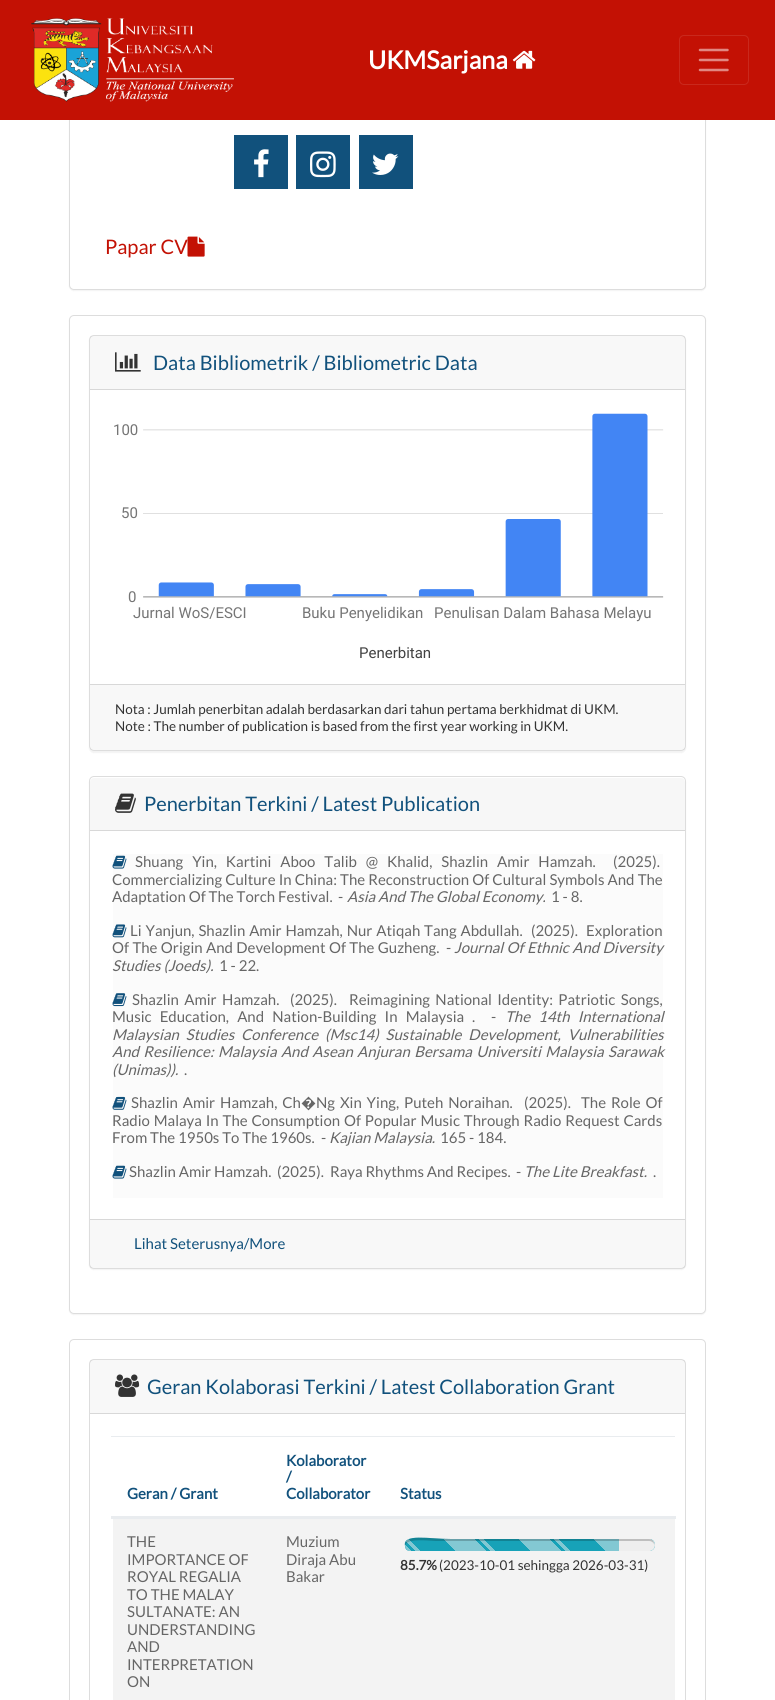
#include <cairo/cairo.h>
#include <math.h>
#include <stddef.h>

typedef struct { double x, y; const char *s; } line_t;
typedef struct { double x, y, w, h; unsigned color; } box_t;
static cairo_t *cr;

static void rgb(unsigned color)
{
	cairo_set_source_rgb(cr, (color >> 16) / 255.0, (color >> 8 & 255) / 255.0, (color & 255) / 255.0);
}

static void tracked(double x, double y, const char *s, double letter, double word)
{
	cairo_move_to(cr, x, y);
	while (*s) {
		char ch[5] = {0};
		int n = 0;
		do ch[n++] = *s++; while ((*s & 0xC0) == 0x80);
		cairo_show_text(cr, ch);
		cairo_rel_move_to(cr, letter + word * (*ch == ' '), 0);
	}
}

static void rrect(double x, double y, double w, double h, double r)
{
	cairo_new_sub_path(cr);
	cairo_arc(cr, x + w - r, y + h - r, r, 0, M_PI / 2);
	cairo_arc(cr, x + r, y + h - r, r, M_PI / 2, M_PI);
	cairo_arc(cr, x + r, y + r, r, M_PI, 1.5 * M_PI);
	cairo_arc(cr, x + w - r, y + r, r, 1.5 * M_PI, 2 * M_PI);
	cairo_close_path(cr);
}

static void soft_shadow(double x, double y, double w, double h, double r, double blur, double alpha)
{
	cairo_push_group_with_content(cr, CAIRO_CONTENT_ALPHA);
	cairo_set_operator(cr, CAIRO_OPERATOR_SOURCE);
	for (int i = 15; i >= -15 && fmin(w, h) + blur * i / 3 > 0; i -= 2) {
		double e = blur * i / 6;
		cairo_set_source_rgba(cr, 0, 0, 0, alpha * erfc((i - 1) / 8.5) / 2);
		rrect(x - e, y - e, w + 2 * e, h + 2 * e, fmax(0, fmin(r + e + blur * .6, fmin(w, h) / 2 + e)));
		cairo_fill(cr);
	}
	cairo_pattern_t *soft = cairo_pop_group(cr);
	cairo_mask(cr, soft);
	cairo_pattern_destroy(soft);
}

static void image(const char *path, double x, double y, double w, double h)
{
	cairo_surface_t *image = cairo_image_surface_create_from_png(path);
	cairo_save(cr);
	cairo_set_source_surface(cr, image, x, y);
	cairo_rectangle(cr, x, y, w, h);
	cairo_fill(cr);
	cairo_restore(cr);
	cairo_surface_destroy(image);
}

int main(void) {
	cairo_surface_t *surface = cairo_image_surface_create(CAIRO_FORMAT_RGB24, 775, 1700);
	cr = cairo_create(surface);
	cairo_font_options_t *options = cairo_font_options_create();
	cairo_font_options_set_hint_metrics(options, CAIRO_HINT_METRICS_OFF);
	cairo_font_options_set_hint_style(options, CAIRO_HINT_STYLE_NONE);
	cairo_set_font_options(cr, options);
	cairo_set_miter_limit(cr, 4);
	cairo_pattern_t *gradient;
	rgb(0xffffff);
	cairo_paint(cr);
	rgb(0x000000);
	soft_shadow(69, -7, 637, 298, 5, 0.5, 0.05);
	rgb(0xffffff);
	rrect(69.5, -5.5, 636, 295, 4.5);
	cairo_fill_preserve(cr);
	rgb(0xdddddd);
	cairo_set_line_width(cr, 1);
	cairo_stroke(cr);
	rgb(0xc31104);
	cairo_rectangle(cr, 0, 0, 775, 120);
	cairo_fill(cr);
	image("img/1.png", 31, 18, 203, 84);
	image("img/2.png", 512, 50, 24, 19);
	rrect(679.5, 35.5, 69, 49, 4.5);
	rgb(0xc9291d);
	cairo_stroke(cr);
	cairo_new_path(cr);
	cairo_move_to(cr, 700, 50);
	cairo_line_to(cr, 727.5, 50);
	cairo_move_to(cr, 700, 60);
	cairo_line_to(cr, 727.5, 60);
	cairo_move_to(cr, 700, 70);
	cairo_line_to(cr, 727.5, 70);
	rgb(0xe18882);
	cairo_set_line_width(cr, 2.5);
	cairo_set_line_cap(cr, CAIRO_LINE_CAP_ROUND);
	cairo_stroke(cr);
	rgb(0x11517c);
	cairo_rectangle(cr, 234, 135, 54, 54);
	cairo_fill(cr);
	image("img/3.png", 254, 149, 15, 29);
	cairo_rectangle(cr, 296, 135, 54, 54);
	cairo_fill(cr);
	image("img/4.png", 310, 151, 26, 27);
	cairo_rectangle(cr, 359, 135, 54, 54);
	cairo_fill(cr);
	image("img/5.png", 372, 153, 27, 22);
	rgb(0x000000);
	soft_shadow(69, 316, 637, 999, 5, 0.5, 0.05);
	rgb(0xffffff);
	rrect(69.5, 315.5, 636, 998, 4.5);
	cairo_fill_preserve(cr);
	rgb(0xdddddd);
	cairo_set_line_width(cr, 1);
	cairo_set_line_cap(cr, CAIRO_LINE_CAP_BUTT);
	cairo_stroke(cr);
	cairo_save(cr);
	cairo_set_fill_rule(cr, CAIRO_FILL_RULE_EVEN_ODD);
	cairo_new_path(cr);
	cairo_move_to(cr, 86, 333);
	cairo_line_to(cr, 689, 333);
	cairo_line_to(cr, 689, 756);
	cairo_line_to(cr, 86, 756);
	cairo_close_path(cr);
	cairo_move_to(cr, 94, 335);
	cairo_line_to(cr, 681, 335);
	cairo_curve_to(cr, 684, 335, 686, 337, 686, 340);
	cairo_line_to(cr, 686, 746);
	cairo_curve_to(cr, 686, 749, 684, 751, 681, 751);
	cairo_line_to(cr, 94, 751);
	cairo_curve_to(cr, 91, 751, 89, 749, 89, 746);
	cairo_line_to(cr, 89, 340);
	cairo_curve_to(cr, 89, 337, 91, 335, 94, 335);
	cairo_close_path(cr);
	cairo_clip(cr);
	rgb(0x000000);
	soft_shadow(89, 336, 597, 417, 5, 0.5, 0.05);
	cairo_restore(cr);
	rrect(89.5, 335.5, 596, 415, 4.5);
	cairo_stroke(cr);
	cairo_set_source_rgba(cr, 0, 0, 0, 0.03);
	cairo_rectangle(cr, 90, 336, 595, 53);
	cairo_fill(cr);
	rgb(0xd8d8d8);
	cairo_rectangle(cr, 90, 389, 595, 1);
	cairo_fill(cr);
	image("img/7.png", 115, 352, 26, 20);
	image("img/8.png", 143, 413, 521, 185);
	cairo_set_source_rgba(cr, 0, 0, 0, 0.03);
	cairo_rectangle(cr, 90, 685, 595, 65);
	cairo_fill(cr);
	rgb(0xd8d8d8);
	cairo_rectangle(cr, 90, 684, 595, 1);
	cairo_fill(cr);
	rgb(0x000000);
	soft_shadow(89, 778, 597, 492, 5, 0.5, 0.05);
	rgb(0xffffff);
	rrect(89.5, 776.5, 596, 492, 4.5);
	cairo_fill_preserve(cr);
	rgb(0xdddddd);
	cairo_stroke(cr);
	rgb(0xf7f7f7);
	cairo_new_path(cr);
	cairo_move_to(cr, 94, 778);
	cairo_line_to(cr, 681, 778);
	cairo_curve_to(cr, 683, 778, 685, 780, 685, 782);
	cairo_line_to(cr, 685, 831);
	cairo_line_to(cr, 90, 831);
	cairo_line_to(cr, 90, 782);
	cairo_curve_to(cr, 90, 780, 92, 778, 94, 778);
	cairo_close_path(cr);
	cairo_fill(cr);
	rgb(0xd8d8d8);
	cairo_rectangle(cr, 90, 830, 595, 1);
	cairo_fill(cr);
	image("img/9.png", 115, 793, 21, 20);
	rgb(0xfbfbfb);
	cairo_rectangle(cr, 113, 854, 550, 344);
	cairo_fill(cr);
	image("img/10.png", 112, 855, 15, 14);
	image("img/11.png", 112, 924, 15, 14);
	image("img/12.png", 112, 993, 15, 14);
	image("img/13.png", 112, 1096, 15, 14);
	image("img/10.png", 112, 1165, 15, 14);
	cairo_set_source_rgba(cr, 0, 0, 0, 0.03);
	cairo_rectangle(cr, 90, 1220, 595, 48);
	cairo_fill(cr);
	rgb(0xd8d8d8);
	cairo_rectangle(cr, 90, 1219, 595, 1);
	cairo_fill(cr);
	rrect(69.5, 1339.5, 636, 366, 4.5);
	rgb(0xdddddd);
	cairo_stroke(cr);
	rrect(89.5, 1359.5, 596, 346, 4.5);
	cairo_stroke(cr);
	cairo_set_source_rgba(cr, 0, 0, 0, 0.03);
	cairo_rectangle(cr, 90, 1360, 595, 53);
	cairo_fill(cr);
	rgb(0xd8d8d8);
	cairo_rectangle(cr, 90, 1413, 595, 1);
	cairo_fill(cr);
	image("img/14.png", 115, 1374, 25, 23);
	{
		static const box_t items[] = {
			{111, 1436, 564, 1, 0xe9ecef},
			{111, 1516, 565, 3, 0xe9ecef},
			{113, 1519, 562, 181, 0xf3f3f3},
		};
		for (size_t i = 0; i < sizeof items / sizeof *items; i++) {
			rgb(items[i].color);
			cairo_rectangle(cr, items[i].x, items[i].y, items[i].w, items[i].h);
			cairo_fill(cr);
		}
	}
	rgb(0x17a2b8);
	cairo_new_path(cr);
	cairo_move_to(cr, 649, 1551);
	cairo_line_to(cr, 410, 1551);
	cairo_curve_to(cr, 407, 1551, 405, 1549, 405, 1546);
	cairo_curve_to(cr, 402, 1533, 429, 1539, 451, 1539);
	cairo_line_to(cr, 649, 1539);
	cairo_curve_to(cr, 657, 1539, 657, 1551, 649, 1551);
	cairo_close_path(cr);
	cairo_fill(cr);
	rgb(0xeeeeee);
	cairo_new_path(cr);
	cairo_move_to(cr, 619, 1539);
	cairo_line_to(cr, 650.5, 1539);
	cairo_curve_to(cr, 653, 1540, 655, 1542, 655, 1545);
	cairo_curve_to(cr, 655, 1548, 653, 1550.5, 650, 1551);
	cairo_line_to(cr, 619, 1551);
	cairo_close_path(cr);
	cairo_fill(cr);
	gradient = cairo_pattern_create_linear(639, 1523, 595, 1567);
	cairo_pattern_add_color_stop_rgba(gradient, 0.25, 0.933, 0.933, 0.933, 0);
	cairo_pattern_add_color_stop_rgba(gradient, 0.25, 0.933, 0.933, 0.933, 0.5);
	cairo_pattern_add_color_stop_rgba(gradient, 0.3, 0.933, 0.933, 0.933, 0.5);
	cairo_pattern_add_color_stop_rgba(gradient, 0.3, 0.933, 0.933, 0.933, 0);
	cairo_pattern_add_color_stop_rgba(gradient, 0.35, 0.933, 0.933, 0.933, 0);
	cairo_pattern_add_color_stop_rgba(gradient, 0.35, 0.933, 0.933, 0.933, 0.5);
	cairo_pattern_add_color_stop_rgba(gradient, 0.7, 0.933, 0.933, 0.933, 0.5);
	cairo_pattern_add_color_stop_rgba(gradient, 0.7, 0.933, 0.933, 0.933, 0);
	cairo_set_source(cr, gradient);
	cairo_pattern_destroy(gradient);
	cairo_new_path(cr);
	cairo_move_to(cr, 580, 1539);
	cairo_line_to(cr, 650, 1539);
	cairo_curve_to(cr, 653, 1540, 655, 1542, 655, 1545);
	cairo_curve_to(cr, 655, 1548, 653, 1550, 650, 1551);
	cairo_line_to(cr, 580, 1551);
	cairo_close_path(cr);
	cairo_fill(cr);
	gradient = cairo_pattern_create_linear(564, 1523, 520, 1567);
	cairo_pattern_add_color_stop_rgba(gradient, 0.25, 0.09, 0.635, 0.722, 1);
	cairo_pattern_add_color_stop_rgba(gradient, 0.25, 0.514, 0.784, 0.827, 1);
	cairo_pattern_add_color_stop_rgba(gradient, 0.3, 0.514, 0.784, 0.827, 1);
	cairo_pattern_add_color_stop_rgba(gradient, 0.3, 0.09, 0.635, 0.722, 1);
	cairo_pattern_add_color_stop_rgba(gradient, 0.35, 0.09, 0.635, 0.722, 1);
	cairo_pattern_add_color_stop_rgba(gradient, 0.35, 0.514, 0.784, 0.827, 1);
	cairo_pattern_add_color_stop_rgba(gradient, 0.7, 0.514, 0.784, 0.827, 1);
	cairo_pattern_add_color_stop_rgba(gradient, 0.7, 0.09, 0.635, 0.722, 1);
	cairo_set_source(cr, gradient);
	cairo_pattern_destroy(gradient);
	cairo_rectangle(cr, 519, 1539, 51, 12);
	cairo_fill(cr);
	gradient = cairo_pattern_create_linear(489, 1523, 445, 1567);
	cairo_pattern_add_color_stop_rgba(gradient, 0.25, 0.09, 0.635, 0.722, 1);
	cairo_pattern_add_color_stop_rgba(gradient, 0.25, 0.514, 0.784, 0.827, 1);
	cairo_pattern_add_color_stop_rgba(gradient, 0.3, 0.514, 0.784, 0.827, 1);
	cairo_pattern_add_color_stop_rgba(gradient, 0.3, 0.09, 0.635, 0.722, 1);
	cairo_pattern_add_color_stop_rgba(gradient, 0.35, 0.09, 0.635, 0.722, 1);
	cairo_pattern_add_color_stop_rgba(gradient, 0.35, 0.514, 0.784, 0.827, 1);
	cairo_pattern_add_color_stop_rgba(gradient, 0.7, 0.514, 0.784, 0.827, 1);
	cairo_pattern_add_color_stop_rgba(gradient, 0.7, 0.09, 0.635, 0.722, 1);
	cairo_set_source(cr, gradient);
	cairo_pattern_destroy(gradient);
	cairo_rectangle(cr, 444, 1539, 51, 12);
	cairo_fill(cr);
	gradient = cairo_pattern_create_linear(414, 1523, 370, 1567);
	cairo_pattern_add_color_stop_rgba(gradient, 0.25, 0.933, 0.933, 0.933, 0);
	cairo_pattern_add_color_stop_rgba(gradient, 0.25, 0.933, 0.933, 0.933, 0.5);
	cairo_pattern_add_color_stop_rgba(gradient, 0.3, 0.933, 0.933, 0.933, 0.5);
	cairo_pattern_add_color_stop_rgba(gradient, 0.3, 0.933, 0.933, 0.933, 0);
	cairo_pattern_add_color_stop_rgba(gradient, 0.35, 0.933, 0.933, 0.933, 0);
	cairo_pattern_add_color_stop_rgba(gradient, 0.35, 0.933, 0.933, 0.933, 0.5);
	cairo_pattern_add_color_stop_rgba(gradient, 0.7, 0.933, 0.933, 0.933, 0.5);
	cairo_pattern_add_color_stop_rgba(gradient, 0.7, 0.933, 0.933, 0.933, 0);
	cairo_set_source(cr, gradient);
	cairo_pattern_destroy(gradient);
	cairo_new_path(cr);
	cairo_move_to(cr, 409.5, 1551);
	cairo_curve_to(cr, 407, 1550.5, 405, 1548, 405, 1545);
	cairo_curve_to(cr, 405, 1542, 406.5, 1540, 409, 1539);
	cairo_line_to(cr, 430, 1539);
	cairo_line_to(cr, 430, 1551);
	cairo_close_path(cr);
	cairo_fill(cr);
	cairo_set_source_rgba(cr, 0, 0, 0, 0.2);
	cairo_new_path(cr);
	cairo_move_to(cr, 405, 1546);
	cairo_curve_to(cr, 403, 1533, 431, 1539, 451, 1539);
	cairo_line_to(cr, 649, 1539);
	cairo_curve_to(cr, 651, 1539, 653, 1540, 654, 1543);
	cairo_line_to(cr, 655, 1546);
	cairo_curve_to(cr, 654, 1543, 652, 1541, 649, 1541);
	cairo_line_to(cr, 451, 1541);
	cairo_line_to(cr, 436, 1541);
	cairo_curve_to(cr, 420, 1540, 406, 1539, 405, 1546);
	cairo_close_path(cr);
	cairo_fill(cr);
	cairo_select_font_face(cr, "Lato", CAIRO_FONT_SLANT_NORMAL, CAIRO_FONT_WEIGHT_BOLD);
	cairo_set_font_size(cr, 25);
	rgb(0xffffff);
	cairo_move_to(cr, 368, 69);
	cairo_show_text(cr, "UKMSarjana");
	cairo_select_font_face(cr, "Lato", CAIRO_FONT_SLANT_NORMAL, CAIRO_FONT_WEIGHT_NORMAL);
	cairo_set_font_size(cr, 20);
	rgb(0xc31104);
	cairo_move_to(cr, 105, 254);
	cairo_show_text(cr, "Papar CV");
	image("img/6.png", 187, 236, 18, 21);
	rgb(0x11517c);
	cairo_move_to(cr, 153, 370);
	cairo_show_text(cr, "Data Bibliometrik / Bibliometric Data");
	cairo_select_font_face(cr, "Roboto", CAIRO_FONT_SLANT_NORMAL, CAIRO_FONT_WEIGHT_NORMAL);
	cairo_set_font_size(cr, 15);
	rgb(0x757575);
	{
		static const line_t items[] = {
			{113, 435, "100"},
			{121, 518, "50"},
			{128, 602, "0"},
			{133, 618, "Jurnal WoS/ESCI"},
			{302, 618, "Buku Penyelidikan"},
			{434, 618, "Penulisan Dalam Bahasa Melayu"},
		};
		for (size_t i = 0; i < sizeof items / sizeof *items; i++) {
			cairo_move_to(cr, items[i].x, items[i].y);
			cairo_show_text(cr, items[i].s);
		}
	}
	rgb(0x424242);
	cairo_move_to(cr, 359, 658);
	cairo_show_text(cr, "Penerbitan");
	cairo_select_font_face(cr, "Lato", CAIRO_FONT_SLANT_NORMAL, CAIRO_FONT_WEIGHT_NORMAL);
	cairo_set_font_size(cr, 13.5);
	rgb(0x333333);
	cairo_move_to(cr, 115, 714);
	cairo_show_text(cr, "Nota : Jumlah penerbitan adalah berdasarkan dari tahun pertama berkhidmat di UKM.");
	cairo_move_to(cr, 115, 731);
	cairo_show_text(cr, "Note : The number of publication is based from the first year working in UKM.");
	cairo_set_font_size(cr, 20);
	rgb(0x11517c);
	cairo_move_to(cr, 144, 811);
	cairo_show_text(cr, "Penerbitan Terkini / Latest Publication");
	cairo_set_font_size(cr, 15);
	rgb(0x666666);
	tracked(135, 867, "Shuang Yin, Kartini Aboo Talib @ Khalid, Shazlin Amir Hamzah.", 0, 6);
	cairo_move_to(cr, 613, 867);
	cairo_show_text(cr, "(2025).");
	tracked(112, 885, "Commercializing Culture In China: The Reconstruction Of Cultural Symbols And The", 0, 0.25);
	cairo_move_to(cr, 112, 902);
	cairo_show_text(cr, "Adaptation Of The Torch Festival.");
	cairo_move_to(cr, 338, 902);
	cairo_show_text(cr, "-");
	cairo_select_font_face(cr, "Lato", CAIRO_FONT_SLANT_ITALIC, CAIRO_FONT_WEIGHT_NORMAL);
	cairo_move_to(cr, 347, 902);
	cairo_show_text(cr, "Asia And The Global Economy.");
	cairo_select_font_face(cr, "Lato", CAIRO_FONT_SLANT_NORMAL, CAIRO_FONT_WEIGHT_NORMAL);
	cairo_move_to(cr, 551, 902);
	cairo_show_text(cr, "1 - 8.");
	tracked(130, 936, "Li Yanjun, Shazlin Amir Hamzah, Nur Atiqah Tang Abdullah.", 0, 1);
	cairo_move_to(cr, 531, 936);
	cairo_show_text(cr, "(2025).");
	cairo_move_to(cr, 586, 936);
	cairo_show_text(cr, "Exploration");
	tracked(112, 953, "Of The Origin And Development Of The Guzheng.", 0, 0.5);
	cairo_move_to(cr, 446, 953);
	cairo_show_text(cr, "-");
	cairo_select_font_face(cr, "Lato", CAIRO_FONT_SLANT_ITALIC, CAIRO_FONT_WEIGHT_NORMAL);
	tracked(454, 953, "Journal Of Ethnic And Diversity", 0, 0.5);
	cairo_move_to(cr, 112, 971);
	cairo_show_text(cr, "Studies (Joeds).");
	cairo_select_font_face(cr, "Lato", CAIRO_FONT_SLANT_NORMAL, CAIRO_FONT_WEIGHT_NORMAL);
	cairo_move_to(cr, 219, 971);
	cairo_show_text(cr, "1 - 22.");
	tracked(132, 1005, "Shazlin Amir Hamzah.", 0, 2.5);
	cairo_move_to(cr, 290, 1005);
	cairo_show_text(cr, "(2025).");
	tracked(349, 1005, "Reimagining National Identity: Patriotic Songs,", 0, 2.5);
	tracked(112, 1022, "Music Education, And Nation-Building In Malaysia", 0, 5.25);
	cairo_move_to(cr, 491, 1022);
	cairo_show_text(cr, "-");
	cairo_select_font_face(cr, "Lato", CAIRO_FONT_SLANT_ITALIC, CAIRO_FONT_WEIGHT_NORMAL);
	tracked(505, 1022, "The 14th International", 0, 5.25);
	cairo_select_font_face(cr, "Lato", CAIRO_FONT_SLANT_NORMAL, CAIRO_FONT_WEIGHT_NORMAL);
	cairo_move_to(cr, 472, 1022);
	cairo_show_text(cr, ".");
	cairo_select_font_face(cr, "Lato", CAIRO_FONT_SLANT_ITALIC, CAIRO_FONT_WEIGHT_NORMAL);
	tracked(112, 1040, "Malaysian Studies Conference (Msc14) Sustainable Development, Vulnerabilities", 0, 4);
	tracked(112, 1057, "And Resilience:", 0, 1.5);
	tracked(218, 1057, "Malaysia And Asean Anjuran Bersama Universiti Malaysia Sarawak", 0, 1.5);
	cairo_move_to(cr, 112, 1075);
	cairo_show_text(cr, "(Unimas)).");
	cairo_select_font_face(cr, "Lato", CAIRO_FONT_SLANT_NORMAL, CAIRO_FONT_WEIGHT_NORMAL);
	cairo_move_to(cr, 184, 1075);
	cairo_show_text(cr, ".");
	tracked(131, 1108, "Shazlin Amir Hamzah, Ch", 0, 2);
	cairo_select_font_face(cr, "Noto Sans", CAIRO_FONT_SLANT_NORMAL, CAIRO_FONT_WEIGHT_NORMAL);
	cairo_move_to(cr, 301, 1108);
	cairo_show_text(cr, "�");
	cairo_select_font_face(cr, "Lato", CAIRO_FONT_SLANT_NORMAL, CAIRO_FONT_WEIGHT_NORMAL);
	tracked(316, 1108, "Ng Xin Ying, Puteh Noraihan.", 0, 2);
	cairo_move_to(cr, 524, 1108);
	cairo_show_text(cr, "(2025).");
	tracked(581, 1108, "The Role Of", 0, 2);
	tracked(112, 1126, "Radio Malaya In The Consumption Of Popular Music Through Radio Request Cards", 0, 1);
	cairo_move_to(cr, 112, 1143);
	cairo_show_text(cr, "From The 1950s To The 1960s.");
	cairo_move_to(cr, 321, 1143);
	cairo_show_text(cr, "-");
	cairo_select_font_face(cr, "Lato", CAIRO_FONT_SLANT_ITALIC, CAIRO_FONT_WEIGHT_NORMAL);
	cairo_move_to(cr, 329, 1143);
	cairo_show_text(cr, "Kajian Malaysia.");
	cairo_select_font_face(cr, "Lato", CAIRO_FONT_SLANT_NORMAL, CAIRO_FONT_WEIGHT_NORMAL);
	{
		static const line_t items[] = {
			{440, 1143, "165 - 184."},
			{129, 1177, "Shazlin Amir Hamzah."},
			{277, 1177, "(2025)."},
			{330, 1177, "Raya Rhythms And Recipes."},
			{516, 1177, "-"},
		};
		for (size_t i = 0; i < sizeof items / sizeof *items; i++) {
			cairo_move_to(cr, items[i].x, items[i].y);
			cairo_show_text(cr, items[i].s);
		}
	}
	cairo_select_font_face(cr, "Lato", CAIRO_FONT_SLANT_ITALIC, CAIRO_FONT_WEIGHT_NORMAL);
	cairo_move_to(cr, 524, 1177);
	cairo_show_text(cr, "The Lite Breakfast.");
	cairo_select_font_face(cr, "Lato", CAIRO_FONT_SLANT_NORMAL, CAIRO_FONT_WEIGHT_NORMAL);
	cairo_move_to(cr, 653, 1177);
	cairo_show_text(cr, ".");
	rgb(0x11517c);
	cairo_move_to(cr, 134, 1249);
	cairo_show_text(cr, "Lihat Seterusnya/More");
	cairo_set_font_size(cr, 20);
	cairo_move_to(cr, 147, 1394);
	cairo_show_text(cr, "Geran Kolaborasi Terkini / Latest Collaboration Grant");
	cairo_select_font_face(cr, "Lato", CAIRO_FONT_SLANT_NORMAL, CAIRO_FONT_WEIGHT_BOLD);
	cairo_set_font_size(cr, 15);
	{
		static const line_t items[] = {
			{127, 1499, "Geran / Grant"},
			{286, 1466, "Kolaborator"},
			{286, 1482, "/"},
			{286, 1499, "Collaborator"},
			{400, 1499, "Status"},
		};
		for (size_t i = 0; i < sizeof items / sizeof *items; i++) {
			cairo_move_to(cr, items[i].x, items[i].y);
			cairo_show_text(cr, items[i].s);
		}
	}
	cairo_select_font_face(cr, "Lato", CAIRO_FONT_SLANT_NORMAL, CAIRO_FONT_WEIGHT_NORMAL);
	rgb(0x666666);
	{
		static const line_t items[] = {
			{127, 1547, "THE"},
			{127, 1565, "IMPORTANCE OF"},
			{127, 1582, "ROYAL REGALIA"},
			{127, 1600, "TO THE MALAY"},
			{127, 1617, "SULTANATE: AN"},
			{127, 1635, "UNDERSTANDING"},
			{127, 1652, "AND"},
			{127, 1670, "INTERPRETATION"},
			{127, 1687, "ON"},
			{286, 1547, "Muzium"},
			{286, 1565, "Diraja Abu"},
			{286, 1582, "Bakar"},
		};
		for (size_t i = 0; i < sizeof items / sizeof *items; i++) {
			cairo_move_to(cr, items[i].x, items[i].y);
			cairo_show_text(cr, items[i].s);
		}
	}
	cairo_select_font_face(cr, "Lato", CAIRO_FONT_SLANT_NORMAL, CAIRO_FONT_WEIGHT_BOLD);
	cairo_set_font_size(cr, 13.5);
	rgb(0x333333);
	cairo_move_to(cr, 400, 1570);
	cairo_show_text(cr, "85.7%");
	cairo_select_font_face(cr, "Lato", CAIRO_FONT_SLANT_NORMAL, CAIRO_FONT_WEIGHT_NORMAL);
	cairo_move_to(cr, 439, 1570);
	cairo_show_text(cr, "(2023-10-01 sehingga 2026-03-31)");
	cairo_surface_write_to_png(surface, "page.png");
	cairo_font_options_destroy(options);
	cairo_destroy(cr);
	cairo_surface_destroy(surface);
	return 0;
}
